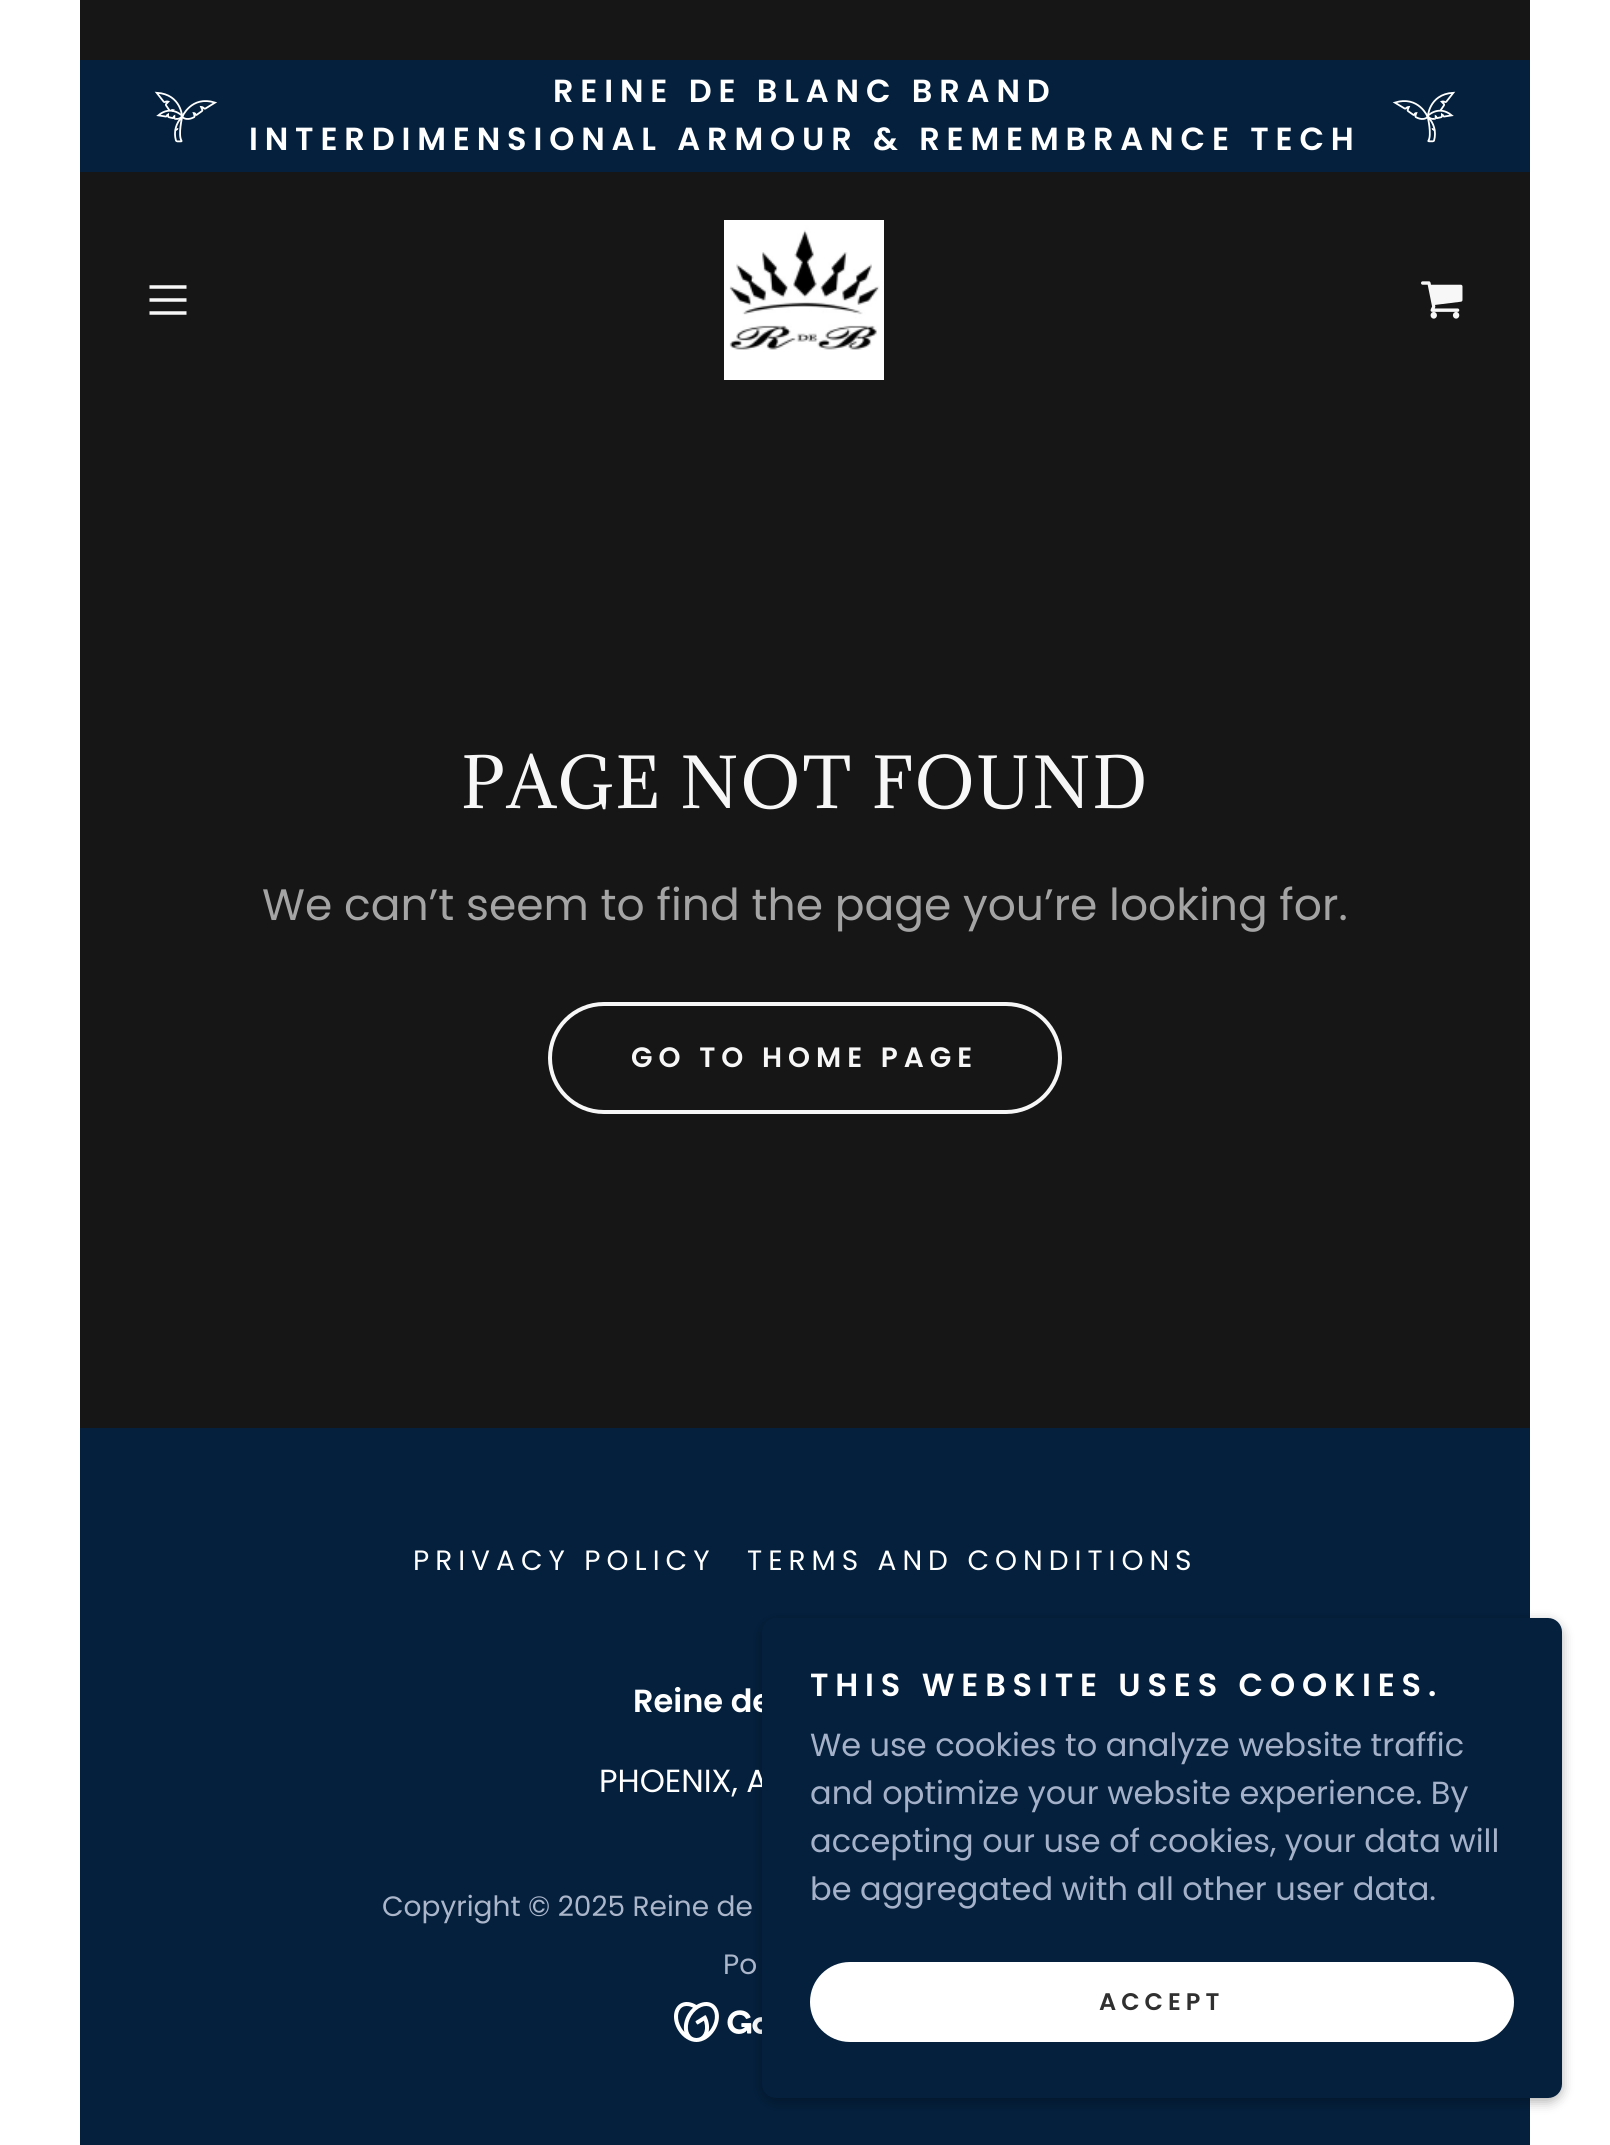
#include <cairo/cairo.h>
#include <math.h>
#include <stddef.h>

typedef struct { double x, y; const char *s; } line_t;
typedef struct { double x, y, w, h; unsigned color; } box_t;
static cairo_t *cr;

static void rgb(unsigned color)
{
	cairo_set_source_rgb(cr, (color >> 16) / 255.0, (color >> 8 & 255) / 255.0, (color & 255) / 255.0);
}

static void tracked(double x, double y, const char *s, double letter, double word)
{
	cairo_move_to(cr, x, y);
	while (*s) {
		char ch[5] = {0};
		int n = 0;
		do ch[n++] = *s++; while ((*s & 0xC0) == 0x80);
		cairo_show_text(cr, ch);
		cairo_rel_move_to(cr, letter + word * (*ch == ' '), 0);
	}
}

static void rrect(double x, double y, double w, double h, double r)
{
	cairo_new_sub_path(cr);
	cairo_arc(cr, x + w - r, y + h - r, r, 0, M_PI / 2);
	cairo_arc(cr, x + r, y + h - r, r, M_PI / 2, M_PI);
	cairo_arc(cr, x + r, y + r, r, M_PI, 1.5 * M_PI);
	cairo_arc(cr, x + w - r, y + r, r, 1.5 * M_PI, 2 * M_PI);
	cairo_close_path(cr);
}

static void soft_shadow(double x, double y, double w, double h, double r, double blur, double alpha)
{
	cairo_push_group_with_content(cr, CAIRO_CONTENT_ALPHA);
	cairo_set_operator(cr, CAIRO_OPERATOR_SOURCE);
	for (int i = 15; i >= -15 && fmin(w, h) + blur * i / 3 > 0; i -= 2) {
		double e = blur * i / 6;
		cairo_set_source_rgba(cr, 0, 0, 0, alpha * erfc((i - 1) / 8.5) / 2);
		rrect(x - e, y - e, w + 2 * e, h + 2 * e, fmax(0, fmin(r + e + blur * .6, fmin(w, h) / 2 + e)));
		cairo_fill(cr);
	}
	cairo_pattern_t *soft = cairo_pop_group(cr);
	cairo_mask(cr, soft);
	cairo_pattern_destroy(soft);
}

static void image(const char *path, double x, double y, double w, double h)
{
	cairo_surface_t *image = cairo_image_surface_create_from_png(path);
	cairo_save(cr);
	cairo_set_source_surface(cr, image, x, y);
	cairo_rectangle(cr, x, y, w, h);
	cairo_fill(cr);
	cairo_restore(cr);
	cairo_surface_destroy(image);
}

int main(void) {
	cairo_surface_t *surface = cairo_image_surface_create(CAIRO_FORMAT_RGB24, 1610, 2145);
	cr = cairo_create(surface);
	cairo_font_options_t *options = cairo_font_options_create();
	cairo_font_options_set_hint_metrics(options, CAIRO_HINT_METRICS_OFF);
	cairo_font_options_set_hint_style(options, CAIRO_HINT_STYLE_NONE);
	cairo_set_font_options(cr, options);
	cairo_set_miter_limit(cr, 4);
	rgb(0xffffff);
	cairo_paint(cr);
	{
		static const box_t items[] = {
			{80, 1428, 1450, 717, 0x04203d},
			{80, 0, 1450, 1428, 0x161616},
			{80, 60, 1450, 112, 0x04203d},
		};
		for (size_t i = 0; i < sizeof items / sizeof *items; i++) {
			rgb(items[i].color);
			cairo_rectangle(cr, items[i].x, items[i].y, items[i].w, items[i].h);
			cairo_fill(cr);
		}
	}
	image("img/1.png", 154, 91, 64, 52);
	image("img/2.png", 1392, 91, 64, 52);
	cairo_new_path(cr);
	cairo_move_to(cr, 149.5, 287);
	cairo_line_to(cr, 186.5, 287);
	cairo_close_path(cr);
	cairo_move_to(cr, 149.5, 300);
	cairo_line_to(cr, 186.5, 300);
	cairo_close_path(cr);
	cairo_move_to(cr, 149.5, 313);
	cairo_line_to(cr, 186.5, 313);
	cairo_close_path(cr);
	rgb(0xf7f7f7);
	cairo_set_line_width(cr, 3.5);
	cairo_set_line_cap(cr, CAIRO_LINE_CAP_SQUARE);
	cairo_stroke(cr);
	image("img/3.png", 724, 220, 160, 160);
	image("img/4.png", 1421, 281, 42, 38);
	rrect(550, 1004, 510, 108, 54);
	cairo_set_line_width(cr, 4);
	cairo_set_line_cap(cr, CAIRO_LINE_CAP_BUTT);
	cairo_stroke(cr);
	image("img/5.png", 674, 2002, 88, 40);
	rgb(0x000000);
	soft_shadow(762, 1622, 800, 480, 14, 6, 0.3);
	cairo_select_font_face(cr, "Poppins SemiBold", CAIRO_FONT_SLANT_NORMAL, CAIRO_FONT_WEIGHT_NORMAL);
	cairo_set_font_size(cr, 32);
	rgb(0xffffff);
	tracked(553, 102, "REINE DE BLANC BRAND", 6.85, 0);
	tracked(249, 150, "INTERDIMENSIONAL ARMOUR & REMEMBRANCE TECH", 6.85, 0);
	cairo_select_font_face(cr, "Adamina", CAIRO_FONT_SLANT_NORMAL, CAIRO_FONT_WEIGHT_NORMAL);
	cairo_set_font_size(cr, 66);
	rgb(0xf7f7f7);
	tracked(461, 808, "PAGE NOT FOUND", 2, 0);
	cairo_select_font_face(cr, "Poppins", CAIRO_FONT_SLANT_NORMAL, CAIRO_FONT_WEIGHT_NORMAL);
	cairo_set_font_size(cr, 44);
	rgb(0xa4a4a4);
	cairo_move_to(cr, 262, 920);
	cairo_show_text(cr, "We can’t seem to find the page you’re looking for.");
	cairo_select_font_face(cr, "Poppins SemiBold", CAIRO_FONT_SLANT_NORMAL, CAIRO_FONT_WEIGHT_NORMAL);
	cairo_set_font_size(cr, 28);
	rgb(0xf7f7f7);
	tracked(631, 1067, "GO TO HOME PAGE", 6, 0);
	cairo_select_font_face(cr, "Poppins", CAIRO_FONT_SLANT_NORMAL, CAIRO_FONT_WEIGHT_NORMAL);
	rgb(0xffffff);
	tracked(413, 1570, "PRIVACY POLICY", 6, 0);
	tracked(747, 1570, "TERMS AND CONDITIONS", 6, 0);
	cairo_select_font_face(cr, "Poppins SemiBold", CAIRO_FONT_SLANT_NORMAL, CAIRO_FONT_WEIGHT_NORMAL);
	cairo_set_font_size(cr, 32);
	cairo_move_to(cr, 633, 1712);
	cairo_show_text(cr, "Reine de");
	cairo_select_font_face(cr, "Poppins", CAIRO_FONT_SLANT_NORMAL, CAIRO_FONT_WEIGHT_NORMAL);
	cairo_move_to(cr, 599, 1792);
	cairo_show_text(cr, "PHOENIX, A");
	cairo_set_font_size(cr, 28);
	rgb(0xacb6cb);
	cairo_move_to(cr, 382, 1916);
	cairo_show_text(cr, "Copyright © 2025 Reine de");
	cairo_move_to(cr, 723, 1974);
	cairo_show_text(cr, "Po");
	rgb(0x04203d);
	rrect(762, 1618, 800, 480, 14);
	cairo_fill(cr);
	cairo_select_font_face(cr, "Poppins SemiBold", CAIRO_FONT_SLANT_NORMAL, CAIRO_FONT_WEIGHT_NORMAL);
	cairo_set_font_size(cr, 32);
	rgb(0xffffff);
	tracked(810, 1696, "THIS WEBSITE USES COOKIES.", 6.85, 0);
	cairo_select_font_face(cr, "Poppins", CAIRO_FONT_SLANT_NORMAL, CAIRO_FONT_WEIGHT_NORMAL);
	rgb(0xa5b1c9);
	{
		static const line_t items[] = {
			{810, 1756, "We use cookies to analyze website traffic"},
			{810, 1804, "and optimize your website experience. By"},
			{810, 1852, "accepting our use of cookies, your data will"},
			{810, 1900, "be aggregated with all other user data."},
		};
		for (size_t i = 0; i < sizeof items / sizeof *items; i++) {
			cairo_move_to(cr, items[i].x, items[i].y);
			cairo_show_text(cr, items[i].s);
		}
	}
	rgb(0xffffff);
	rrect(810, 1962, 704, 80, 40);
	cairo_fill(cr);
	cairo_select_font_face(cr, "Poppins SemiBold", CAIRO_FONT_SLANT_NORMAL, CAIRO_FONT_WEIGHT_NORMAL);
	cairo_set_font_size(cr, 24);
	rgb(0x303030);
	tracked(1099, 2010, "ACCEPT", 5, 0);
	cairo_surface_write_to_png(surface, "page.png");
	cairo_font_options_destroy(options);
	cairo_destroy(cr);
	cairo_surface_destroy(surface);
	return 0;
}
